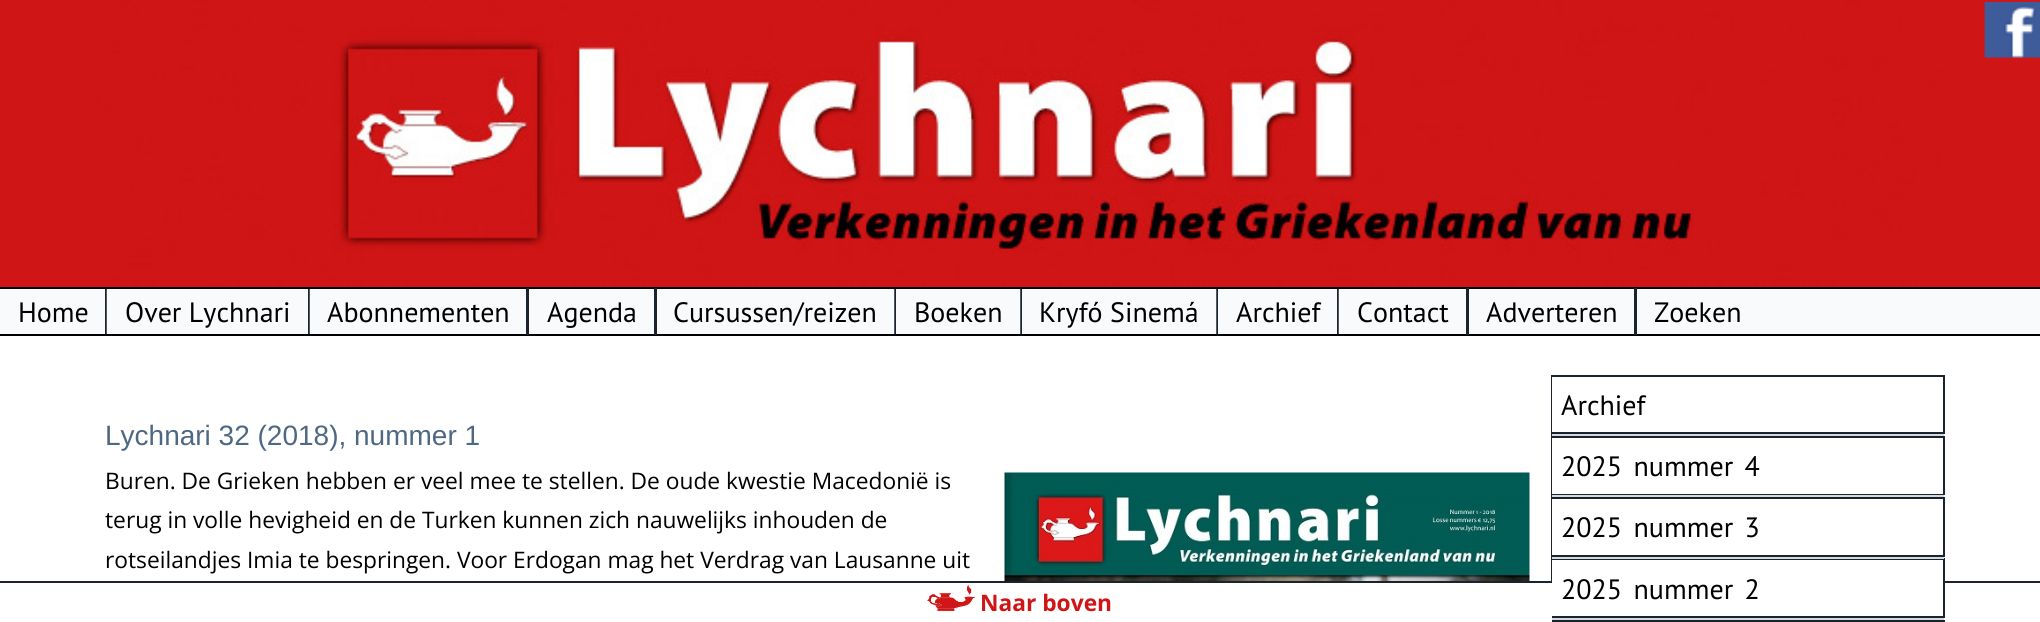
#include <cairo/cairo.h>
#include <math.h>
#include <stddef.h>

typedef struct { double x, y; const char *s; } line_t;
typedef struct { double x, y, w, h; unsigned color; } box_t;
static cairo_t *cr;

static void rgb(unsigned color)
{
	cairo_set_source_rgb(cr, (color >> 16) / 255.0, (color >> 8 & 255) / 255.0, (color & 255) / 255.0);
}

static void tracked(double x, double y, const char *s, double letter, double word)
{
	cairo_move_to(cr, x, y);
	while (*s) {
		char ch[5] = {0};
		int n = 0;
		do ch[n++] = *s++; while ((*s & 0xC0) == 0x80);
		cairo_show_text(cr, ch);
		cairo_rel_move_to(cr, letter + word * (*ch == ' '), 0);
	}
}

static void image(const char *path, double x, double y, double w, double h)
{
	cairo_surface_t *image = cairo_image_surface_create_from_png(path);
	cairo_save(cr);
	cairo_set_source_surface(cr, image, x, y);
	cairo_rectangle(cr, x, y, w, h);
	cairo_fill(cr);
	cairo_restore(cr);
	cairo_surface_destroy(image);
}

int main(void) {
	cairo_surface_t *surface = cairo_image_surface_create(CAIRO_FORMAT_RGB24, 2040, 622);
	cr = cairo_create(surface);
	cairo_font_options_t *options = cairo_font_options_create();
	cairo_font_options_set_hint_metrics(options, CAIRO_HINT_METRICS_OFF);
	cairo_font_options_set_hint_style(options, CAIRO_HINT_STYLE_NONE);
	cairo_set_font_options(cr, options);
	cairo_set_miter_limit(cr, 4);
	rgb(0xffffff);
	cairo_paint(cr);
	image("img/1.png", 0, 0, 2040, 287);
	image("img/2.png", 1984, 1, 56, 57);
	{
		static const box_t items[] = {
			{0, 289, 2040, 45, 0xf9fafb},
			{0, 287, 2040, 2, 0x000000},
			{0, 334, 2040, 2, 0x000000},
		};
		for (size_t i = 0; i < sizeof items / sizeof *items; i++) {
			rgb(items[i].color);
			cairo_rectangle(cr, items[i].x, items[i].y, items[i].w, items[i].h);
			cairo_fill(cr);
		}
	}
	image("img/3.png", 105, 288, 2, 47);
	image("img/3.png", 308, 288, 2, 47);
	rgb(0x1b232d);
	cairo_rectangle(cr, 526, 288, 3, 47);
	cairo_fill(cr);
	cairo_rectangle(cr, 654, 288, 3, 47);
	cairo_fill(cr);
	image("img/4.png", 894, 288, 2, 47);
	image("img/4.png", 1020, 288, 2, 47);
	image("img/4.png", 1216, 288, 2, 47);
	image("img/3.png", 1337, 288, 2, 47);
	cairo_rectangle(cr, 1466, 288, 3, 47);
	cairo_fill(cr);
	cairo_rectangle(cr, 1634, 288, 3, 47);
	cairo_fill(cr);
	image("img/5.png", 1004, 472, 526, 109);
	{
		static const box_t items[] = {
			{1551, 375, 1, 206, 0x1b232d},
			{1552, 375, 392, 2, 0x1b232d},
			{1943, 375, 2, 59, 0x1b232d},
			{1552, 432, 392, 2, 0x1b232d},
			{1552, 434, 392, 2, 0xd3d9de},
			{1552, 436, 392, 2, 0x1b232d},
			{1943, 436, 2, 59, 0x1b232d},
			{1552, 494, 392, 1, 0x1b232d},
			{1552, 495, 392, 2, 0xd3d9de},
			{1552, 497, 392, 2, 0x1b232d},
			{1943, 497, 2, 60, 0x1b232d},
			{1552, 555, 392, 2, 0x1b232d},
			{1552, 559, 392, 1, 0x1b232d},
			{0, 581, 2040, 2, 0x1b232d},
			{1943, 558, 2, 60, 0x1b232d},
			{1552, 557, 392, 2, 0xd3d9de},
			{1552, 581, 391, 2, 0xffffff},
			{1552, 616, 392, 2, 0x1b232d},
			{1552, 618, 392, 2, 0xd3d9de},
			{1552, 620, 393, 2, 0x1b232d},
		};
		for (size_t i = 0; i < sizeof items / sizeof *items; i++) {
			rgb(items[i].color);
			cairo_rectangle(cr, items[i].x, items[i].y, items[i].w, items[i].h);
			cairo_fill(cr);
		}
	}
	image("img/6.png", 927, 584, 48, 27);
	cairo_select_font_face(cr, "PT Sans", CAIRO_FONT_SLANT_NORMAL, CAIRO_FONT_WEIGHT_NORMAL);
	cairo_set_font_size(cr, 28);
	rgb(0x000000);
	{
		static const line_t items[] = {
			{18, 322, "Home"},
			{125, 322, "Over Lychnari"},
			{327, 322, "Abonnementen"},
			{547, 322, "Agenda"},
			{673, 322, "Cursussen/reizen"},
			{914, 322, "Boeken"},
			{1039, 322, "Kryfó Sinemá"},
			{1236, 322, "Archief"},
			{1357, 322, "Contact"},
			{1486, 322, "Adverteren"},
			{1654, 322, "Zoeken"},
		};
		for (size_t i = 0; i < sizeof items / sizeof *items; i++) {
			cairo_move_to(cr, items[i].x, items[i].y);
			cairo_show_text(cr, items[i].s);
		}
	}
	cairo_select_font_face(cr, "Liberation Sans", CAIRO_FONT_SLANT_NORMAL, CAIRO_FONT_WEIGHT_NORMAL);
	rgb(0x4e6883);
	cairo_move_to(cr, 105, 445);
	cairo_show_text(cr, "Lychnari 32 (2018), nummer 1");
	cairo_select_font_face(cr, "Open Sans", CAIRO_FONT_SLANT_NORMAL, CAIRO_FONT_WEIGHT_NORMAL);
	cairo_set_font_size(cr, 22.75);
	rgb(0x000000);
	{
		static const line_t items[] = {
			{105, 489, "Buren. De Grieken hebben er veel mee te stellen. De oude kwestie Macedonië is"},
			{105, 528, "terug in volle hevigheid en de Turken kunnen zich nauwelijks inhouden de"},
			{105, 568, "rotseilandjes Imia te bespringen. Voor Erdogan mag het Verdrag van Lausanne uit"},
		};
		for (size_t i = 0; i < sizeof items / sizeof *items; i++) {
			cairo_move_to(cr, items[i].x, items[i].y);
			cairo_show_text(cr, items[i].s);
		}
	}
	cairo_select_font_face(cr, "PT Sans", CAIRO_FONT_SLANT_NORMAL, CAIRO_FONT_WEIGHT_NORMAL);
	cairo_set_font_size(cr, 28);
	cairo_move_to(cr, 1561, 415);
	cairo_show_text(cr, "Archief");
	{
		static const line_t items[] = {
			{1561, 476, "2025 nummer 4"},
			{1561, 537, "2025 nummer 3"},
			{1561, 599, "2025 nummer 2"},
		};
		for (size_t i = 0; i < sizeof items / sizeof *items; i++) {
			tracked(items[i].x, items[i].y, items[i].s, 0, 4);
		}
	}
	cairo_select_font_face(cr, "Open Sans", CAIRO_FONT_SLANT_NORMAL, CAIRO_FONT_WEIGHT_BOLD);
	cairo_set_font_size(cr, 22.75);
	rgb(0xcf1516);
	cairo_move_to(cr, 980, 611);
	cairo_show_text(cr, "Naar boven");
	cairo_surface_write_to_png(surface, "page.png");
	cairo_font_options_destroy(options);
	cairo_destroy(cr);
	cairo_surface_destroy(surface);
	return 0;
}
